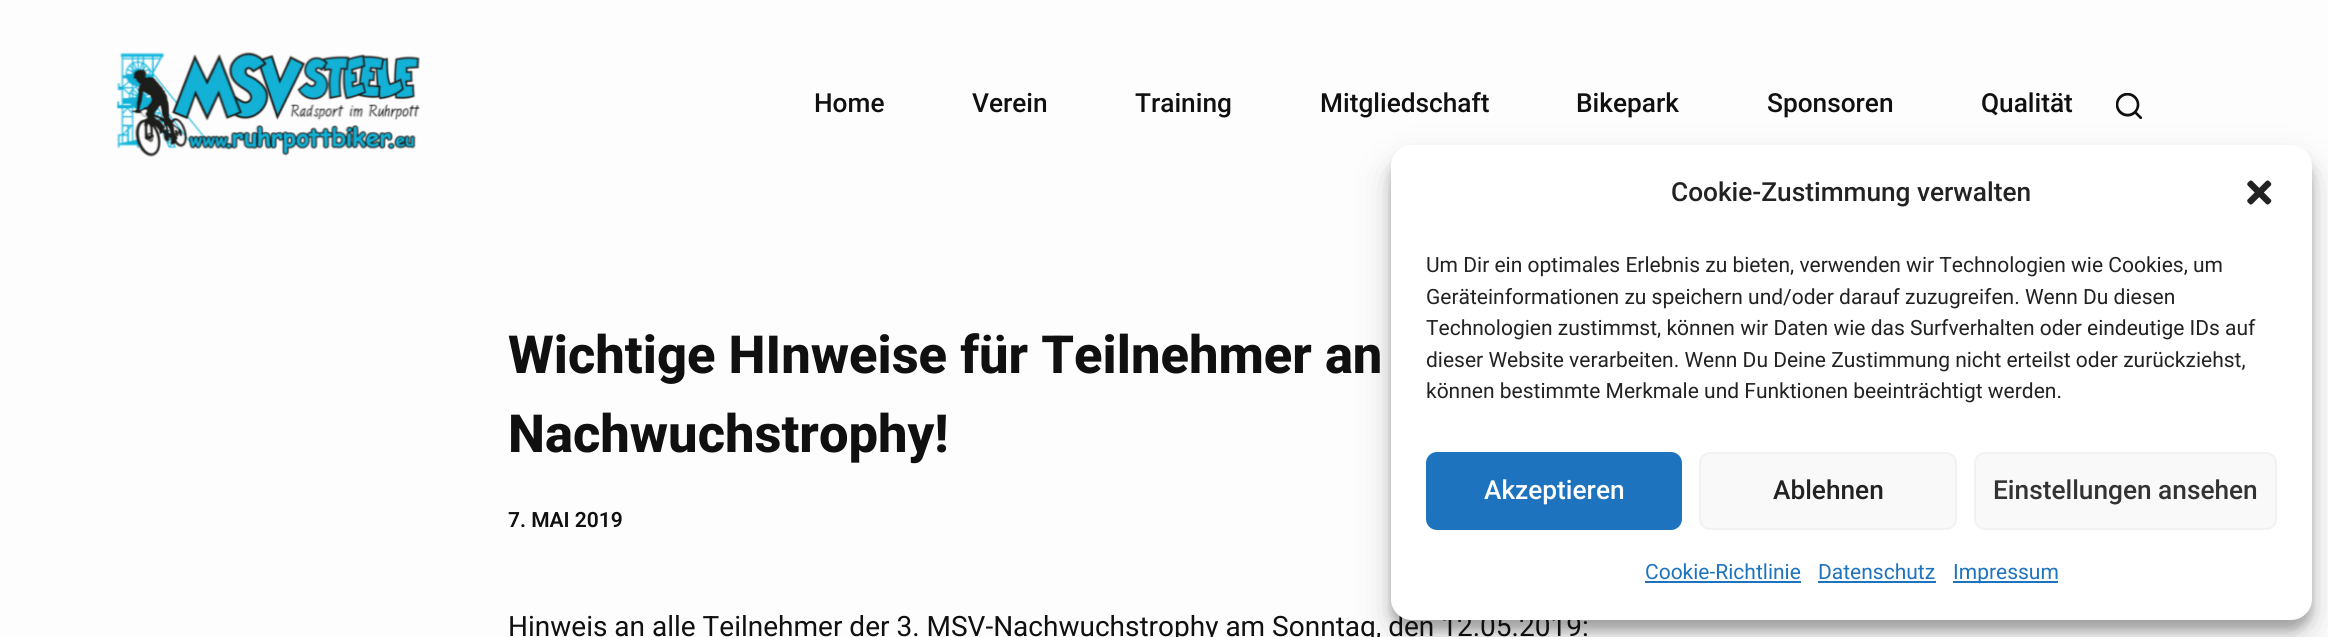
#include <cairo/cairo.h>
#include <math.h>
#include <stddef.h>

typedef struct { double x, y; const char *s; } line_t;
static cairo_t *cr;

static void rgb(unsigned color)
{
	cairo_set_source_rgb(cr, (color >> 16) / 255.0, (color >> 8 & 255) / 255.0, (color & 255) / 255.0);
}

static void rrect(double x, double y, double w, double h, double r)
{
	cairo_new_sub_path(cr);
	cairo_arc(cr, x + w - r, y + h - r, r, 0, M_PI / 2);
	cairo_arc(cr, x + r, y + h - r, r, M_PI / 2, M_PI);
	cairo_arc(cr, x + r, y + r, r, M_PI, 1.5 * M_PI);
	cairo_arc(cr, x + w - r, y + r, r, 1.5 * M_PI, 2 * M_PI);
	cairo_close_path(cr);
}

static void soft_shadow(double x, double y, double w, double h, double r, double blur, double alpha)
{
	cairo_push_group_with_content(cr, CAIRO_CONTENT_ALPHA);
	cairo_set_operator(cr, CAIRO_OPERATOR_SOURCE);
	for (int i = 15; i >= -15 && fmin(w, h) + blur * i / 3 > 0; i -= 2) {
		double e = blur * i / 6;
		cairo_set_source_rgba(cr, 0, 0, 0, alpha * erfc((i - 1) / 8.5) / 2);
		rrect(x - e, y - e, w + 2 * e, h + 2 * e, fmax(0, fmin(r + e + blur * .6, fmin(w, h) / 2 + e)));
		cairo_fill(cr);
	}
	cairo_pattern_t *soft = cairo_pop_group(cr);
	cairo_mask(cr, soft);
	cairo_pattern_destroy(soft);
}

static void image(const char *path, double x, double y, double w, double h)
{
	cairo_surface_t *image = cairo_image_surface_create_from_png(path);
	cairo_save(cr);
	cairo_set_source_surface(cr, image, x, y);
	cairo_rectangle(cr, x, y, w, h);
	cairo_fill(cr);
	cairo_restore(cr);
	cairo_surface_destroy(image);
}

int main(void) {
	cairo_surface_t *surface = cairo_image_surface_create(CAIRO_FORMAT_RGB24, 2328, 637);
	cr = cairo_create(surface);
	cairo_font_options_t *options = cairo_font_options_create();
	cairo_font_options_set_hint_metrics(options, CAIRO_HINT_METRICS_OFF);
	cairo_font_options_set_hint_style(options, CAIRO_HINT_STYLE_NONE);
	cairo_set_font_options(cr, options);
	cairo_set_miter_limit(cr, 4);
	rgb(0xfdfdfd);
	cairo_paint(cr);
	image("img/1.png", 116, 52, 304, 105);
	image("img/2.png", 2116, 93, 26, 26);
	rgb(0x000000);
	soft_shadow(1391, 156, 921, 474, 21, 5, 0.23);
	soft_shadow(1391, 163, 921, 474, 21, 17.5, 0.19);
	cairo_select_font_face(cr, "Roboto Medium", CAIRO_FONT_SLANT_NORMAL, CAIRO_FONT_WEIGHT_NORMAL);
	cairo_set_font_size(cr, 26.25);
	rgb(0x101010);
	{
		static const line_t items[] = {
			{814, 112, "Home"},
			{972, 112, "Verein"},
			{1135, 112, "Training"},
			{1320, 112, "Mitgliedschaft"},
			{1576, 112, "Bikepark"},
			{1767, 112, "Sponsoren"},
			{1981, 112, "Qualität"},
		};
		for (size_t i = 0; i < sizeof items / sizeof *items; i++) {
			cairo_move_to(cr, items[i].x, items[i].y);
			cairo_show_text(cr, items[i].s);
		}
	}
	cairo_select_font_face(cr, "Roboto ExtraBold", CAIRO_FONT_SLANT_NORMAL, CAIRO_FONT_WEIGHT_NORMAL);
	cairo_set_font_size(cr, 52.5);
	cairo_move_to(cr, 508, 373);
	cairo_show_text(cr, "Wichtige HInweise für Teilnehmer an");
	cairo_move_to(cr, 508, 452);
	cairo_show_text(cr, "Nachwuchstrophy!");
	cairo_select_font_face(cr, "Roboto SemiBold", CAIRO_FONT_SLANT_NORMAL, CAIRO_FONT_WEIGHT_NORMAL);
	cairo_set_font_size(cr, 21);
	cairo_move_to(cr, 508, 527);
	cairo_show_text(cr, "7. MAI 2019");
	cairo_select_font_face(cr, "Roboto", CAIRO_FONT_SLANT_NORMAL, CAIRO_FONT_WEIGHT_NORMAL);
	cairo_set_font_size(cr, 28);
	cairo_move_to(cr, 508, 636);
	cairo_show_text(cr, "Hinweis an alle Teilnehmer der 3. MSV-Nachwuchstrophy am Sonntag, den 12.05.2019:");
	rgb(0xffffff);
	rrect(1391, 145, 921, 475, 21);
	cairo_fill(cr);
	cairo_select_font_face(cr, "Roboto Medium", CAIRO_FONT_SLANT_NORMAL, CAIRO_FONT_WEIGHT_NORMAL);
	cairo_set_font_size(cr, 26.25);
	rgb(0x222222);
	cairo_move_to(cr, 1671, 201);
	cairo_show_text(cr, "Cookie-Zustimmung verwalten");
	image("img/3.png", 2247, 180, 25, 25);
	cairo_select_font_face(cr, "Roboto", CAIRO_FONT_SLANT_NORMAL, CAIRO_FONT_WEIGHT_NORMAL);
	cairo_set_font_size(cr, 21);
	{
		static const line_t items[] = {
			{1426, 272, "Um Dir ein optimales Erlebnis zu bieten, verwenden wir Technologien wie Cookies, um"},
			{1426, 304, "Geräteinformationen zu speichern und/oder darauf zuzugreifen. Wenn Du diesen"},
			{1426, 335, "Technologien zustimmst, können wir Daten wie das Surfverhalten oder eindeutige IDs auf"},
			{1426, 367, "dieser Website verarbeiten. Wenn Du Deine Zustimmung nicht erteilst oder zurückziehst,"},
			{1426, 398, "können bestimmte Merkmale und Funktionen beeinträchtigt werden."},
		};
		for (size_t i = 0; i < sizeof items / sizeof *items; i++) {
			cairo_move_to(cr, items[i].x, items[i].y);
			cairo_show_text(cr, items[i].s);
		}
	}
	rgb(0x1e73be);
	rrect(1427, 453, 254, 76, 10);
	cairo_fill_preserve(cr);
	cairo_stroke(cr);
	cairo_select_font_face(cr, "Roboto Medium", CAIRO_FONT_SLANT_NORMAL, CAIRO_FONT_WEIGHT_NORMAL);
	cairo_set_font_size(cr, 26.25);
	rgb(0xffffff);
	cairo_move_to(cr, 1484, 499);
	cairo_show_text(cr, "Akzeptieren");
	rgb(0xf9f9f9);
	rrect(1700, 453, 256, 76, 10);
	cairo_fill_preserve(cr);
	rgb(0xf2f2f2);
	cairo_stroke(cr);
	rgb(0x222222);
	cairo_move_to(cr, 1773, 499);
	cairo_show_text(cr, "Ablehnen");
	rgb(0xf9f9f9);
	rrect(1975, 453, 301, 76, 10);
	cairo_fill_preserve(cr);
	rgb(0xf2f2f2);
	cairo_stroke(cr);
	rgb(0x333333);
	cairo_move_to(cr, 1993, 499);
	cairo_show_text(cr, "Einstellungen ansehen");
	cairo_select_font_face(cr, "Roboto", CAIRO_FONT_SLANT_NORMAL, CAIRO_FONT_WEIGHT_NORMAL);
	cairo_set_font_size(cr, 21);
	rgb(0x1e73be);
	cairo_move_to(cr, 1645, 579);
	cairo_show_text(cr, "Cookie-Richtlinie");
	cairo_rectangle(cr, 1645, 581, 156, 2);
	cairo_fill(cr);
	cairo_move_to(cr, 1818, 579);
	cairo_show_text(cr, "Datenschutz");
	cairo_rectangle(cr, 1818, 581, 118, 2);
	cairo_fill(cr);
	cairo_rectangle(cr, 1953, 581, 105, 2);
	cairo_fill(cr);
	cairo_move_to(cr, 1953, 579);
	cairo_show_text(cr, "Impressum");
	cairo_surface_write_to_png(surface, "page.png");
	cairo_font_options_destroy(options);
	cairo_destroy(cr);
	cairo_surface_destroy(surface);
	return 0;
}
